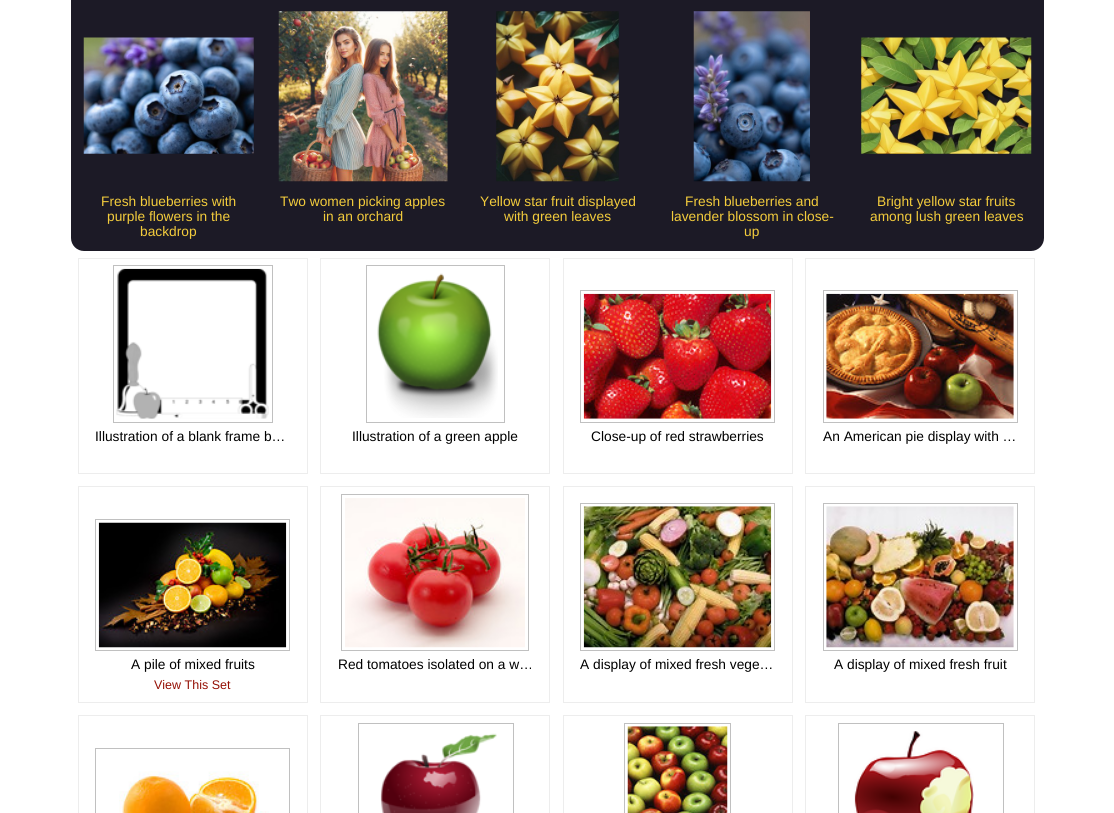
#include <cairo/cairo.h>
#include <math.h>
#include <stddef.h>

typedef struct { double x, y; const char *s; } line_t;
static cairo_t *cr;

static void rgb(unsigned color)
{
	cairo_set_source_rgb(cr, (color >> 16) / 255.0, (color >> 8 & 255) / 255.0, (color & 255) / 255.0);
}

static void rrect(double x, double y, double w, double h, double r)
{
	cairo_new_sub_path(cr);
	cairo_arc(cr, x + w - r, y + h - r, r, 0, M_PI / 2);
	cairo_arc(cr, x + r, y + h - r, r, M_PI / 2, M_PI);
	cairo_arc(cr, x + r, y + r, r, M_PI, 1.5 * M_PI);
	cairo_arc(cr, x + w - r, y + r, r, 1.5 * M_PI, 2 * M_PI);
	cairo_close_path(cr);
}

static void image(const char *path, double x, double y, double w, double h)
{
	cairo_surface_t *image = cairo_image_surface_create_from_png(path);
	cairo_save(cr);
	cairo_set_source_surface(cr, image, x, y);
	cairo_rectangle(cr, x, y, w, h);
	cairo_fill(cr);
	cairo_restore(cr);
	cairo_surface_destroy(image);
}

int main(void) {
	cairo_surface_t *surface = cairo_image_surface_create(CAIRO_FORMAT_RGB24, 1114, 813);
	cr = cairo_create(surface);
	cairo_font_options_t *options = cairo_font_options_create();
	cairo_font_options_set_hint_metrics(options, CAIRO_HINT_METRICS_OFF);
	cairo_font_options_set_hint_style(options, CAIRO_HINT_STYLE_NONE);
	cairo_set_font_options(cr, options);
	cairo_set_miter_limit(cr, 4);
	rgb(0xffffff);
	cairo_paint(cr);
	rgb(0x1c1a26);
	rrect(71, -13, 973, 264, 13);
	cairo_fill(cr);
	image("img/1.png", 83, 37, 171, 117);
	image("img/2.png", 278, 11, 170, 171);
	image("img/3.png", 496, 11, 123, 171);
	image("img/4.png", 693, 11, 117, 171);
	image("img/5.png", 861, 37, 171, 117);
	cairo_rectangle(cr, 78.5, 258.5, 229, 215);
	rgb(0xededed);
	cairo_set_line_width(cr, 1);
	cairo_stroke(cr);
	cairo_rectangle(cr, 113.5, 265.5, 159, 157);
	rgb(0xc0c0c0);
	cairo_stroke(cr);
	image("img/6.png", 116, 268, 153, 151);
	cairo_rectangle(cr, 320.5, 258.5, 229, 215);
	rgb(0xededed);
	cairo_stroke(cr);
	cairo_rectangle(cr, 366.5, 265.5, 138, 157);
	rgb(0xc0c0c0);
	cairo_stroke(cr);
	image("img/7.png", 377, 273, 121, 145);
	cairo_rectangle(cr, 563.5, 258.5, 229, 215);
	rgb(0xededed);
	cairo_stroke(cr);
	cairo_rectangle(cr, 580.5, 290.5, 194, 132);
	rgb(0xc0c0c0);
	cairo_stroke(cr);
	image("img/8.png", 583, 293, 189, 126);
	cairo_rectangle(cr, 805.5, 258.5, 229, 215);
	rgb(0xededed);
	cairo_stroke(cr);
	cairo_rectangle(cr, 823.5, 290.5, 194, 132);
	rgb(0xc0c0c0);
	cairo_stroke(cr);
	image("img/9.png", 826, 293, 188, 126);
	cairo_rectangle(cr, 78.5, 486.5, 229, 216);
	rgb(0xededed);
	cairo_stroke(cr);
	cairo_rectangle(cr, 95.5, 519.5, 194, 131);
	rgb(0xc0c0c0);
	cairo_stroke(cr);
	image("img/10.png", 98, 522, 189, 126);
	cairo_rectangle(cr, 320.5, 486.5, 229, 216);
	rgb(0xededed);
	cairo_stroke(cr);
	cairo_rectangle(cr, 341.5, 494.5, 187, 156);
	rgb(0xc0c0c0);
	cairo_stroke(cr);
	image("img/11.png", 345, 498, 180, 150);
	cairo_rectangle(cr, 563.5, 486.5, 229, 216);
	rgb(0xededed);
	cairo_stroke(cr);
	cairo_rectangle(cr, 580.5, 503.5, 194, 147);
	rgb(0xc0c0c0);
	cairo_stroke(cr);
	image("img/12.png", 583, 506, 189, 142);
	cairo_rectangle(cr, 805.5, 486.5, 229, 216);
	rgb(0xededed);
	cairo_stroke(cr);
	cairo_rectangle(cr, 823.5, 503.5, 194, 147);
	rgb(0xc0c0c0);
	cairo_stroke(cr);
	image("img/13.png", 826, 506, 188, 142);
	cairo_rectangle(cr, 78.5, 715.5, 229, 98);
	rgb(0xededed);
	cairo_stroke(cr);
	cairo_rectangle(cr, 95.5, 748.5, 194, 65);
	rgb(0xc0c0c0);
	cairo_stroke(cr);
	image("img/14.png", 119, 771, 150, 42);
	cairo_rectangle(cr, 320.5, 715.5, 229, 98);
	rgb(0xededed);
	cairo_stroke(cr);
	cairo_rectangle(cr, 358.5, 723.5, 155, 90);
	rgb(0xc0c0c0);
	cairo_stroke(cr);
	image("img/15.png", 380, 733, 117, 80);
	cairo_rectangle(cr, 563.5, 715.5, 229, 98);
	rgb(0xededed);
	cairo_stroke(cr);
	cairo_rectangle(cr, 624.5, 723.5, 106, 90);
	rgb(0xc0c0c0);
	cairo_stroke(cr);
	image("img/16.png", 627, 726, 101, 87);
	cairo_rectangle(cr, 805.5, 715.5, 229, 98);
	rgb(0xededed);
	cairo_stroke(cr);
	cairo_rectangle(cr, 838.5, 723.5, 165, 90);
	rgb(0xc0c0c0);
	cairo_stroke(cr);
	image("img/17.png", 854, 730, 120, 83);
	cairo_select_font_face(cr, "Liberation Sans", CAIRO_FONT_SLANT_NORMAL, CAIRO_FONT_WEIGHT_NORMAL);
	cairo_set_font_size(cr, 13.75);
	rgb(0xf3cc3c);
	{
		static const line_t items[] = {
			{101, 206, "Fresh blueberries with"},
			{107, 221, "purple flowers in the"},
			{140, 236, "backdrop"},
			{280, 206, "Two women picking apples"},
			{323, 221, "in an orchard"},
			{480, 206, "Yellow star fruit displayed"},
			{504, 221, "with green leaves"},
			{685, 206, "Fresh blueberries and"},
			{671, 221, "lavender blossom in close-"},
			{744, 236, "up"},
			{877, 206, "Bright yellow star fruits"},
			{870, 221, "among lush green leaves"},
		};
		for (size_t i = 0; i < sizeof items / sizeof *items; i++) {
			cairo_move_to(cr, items[i].x, items[i].y);
			cairo_show_text(cr, items[i].s);
		}
	}
	rgb(0x000000);
	{
		static const line_t items[] = {
			{95, 441, "Illustration of a blank frame b…"},
			{352, 441, "Illustration of a green apple"},
			{591, 441, "Close-up of red strawberries"},
			{823, 441, "An American pie display with …"},
			{131, 669, "A pile of mixed fruits"},
		};
		for (size_t i = 0; i < sizeof items / sizeof *items; i++) {
			cairo_move_to(cr, items[i].x, items[i].y);
			cairo_show_text(cr, items[i].s);
		}
	}
	cairo_set_font_size(cr, 12.5);
	rgb(0x940f04);
	cairo_move_to(cr, 154, 689);
	cairo_show_text(cr, "View This Set");
	cairo_set_font_size(cr, 13.75);
	rgb(0x000000);
	{
		static const line_t items[] = {
			{338, 669, "Red tomatoes isolated on a w…"},
			{580, 669, "A display of mixed fresh vege…"},
			{834, 669, "A display of mixed fresh fruit"},
		};
		for (size_t i = 0; i < sizeof items / sizeof *items; i++) {
			cairo_move_to(cr, items[i].x, items[i].y);
			cairo_show_text(cr, items[i].s);
		}
	}
	cairo_surface_write_to_png(surface, "page.png");
	cairo_font_options_destroy(options);
	cairo_destroy(cr);
	cairo_surface_destroy(surface);
	return 0;
}
